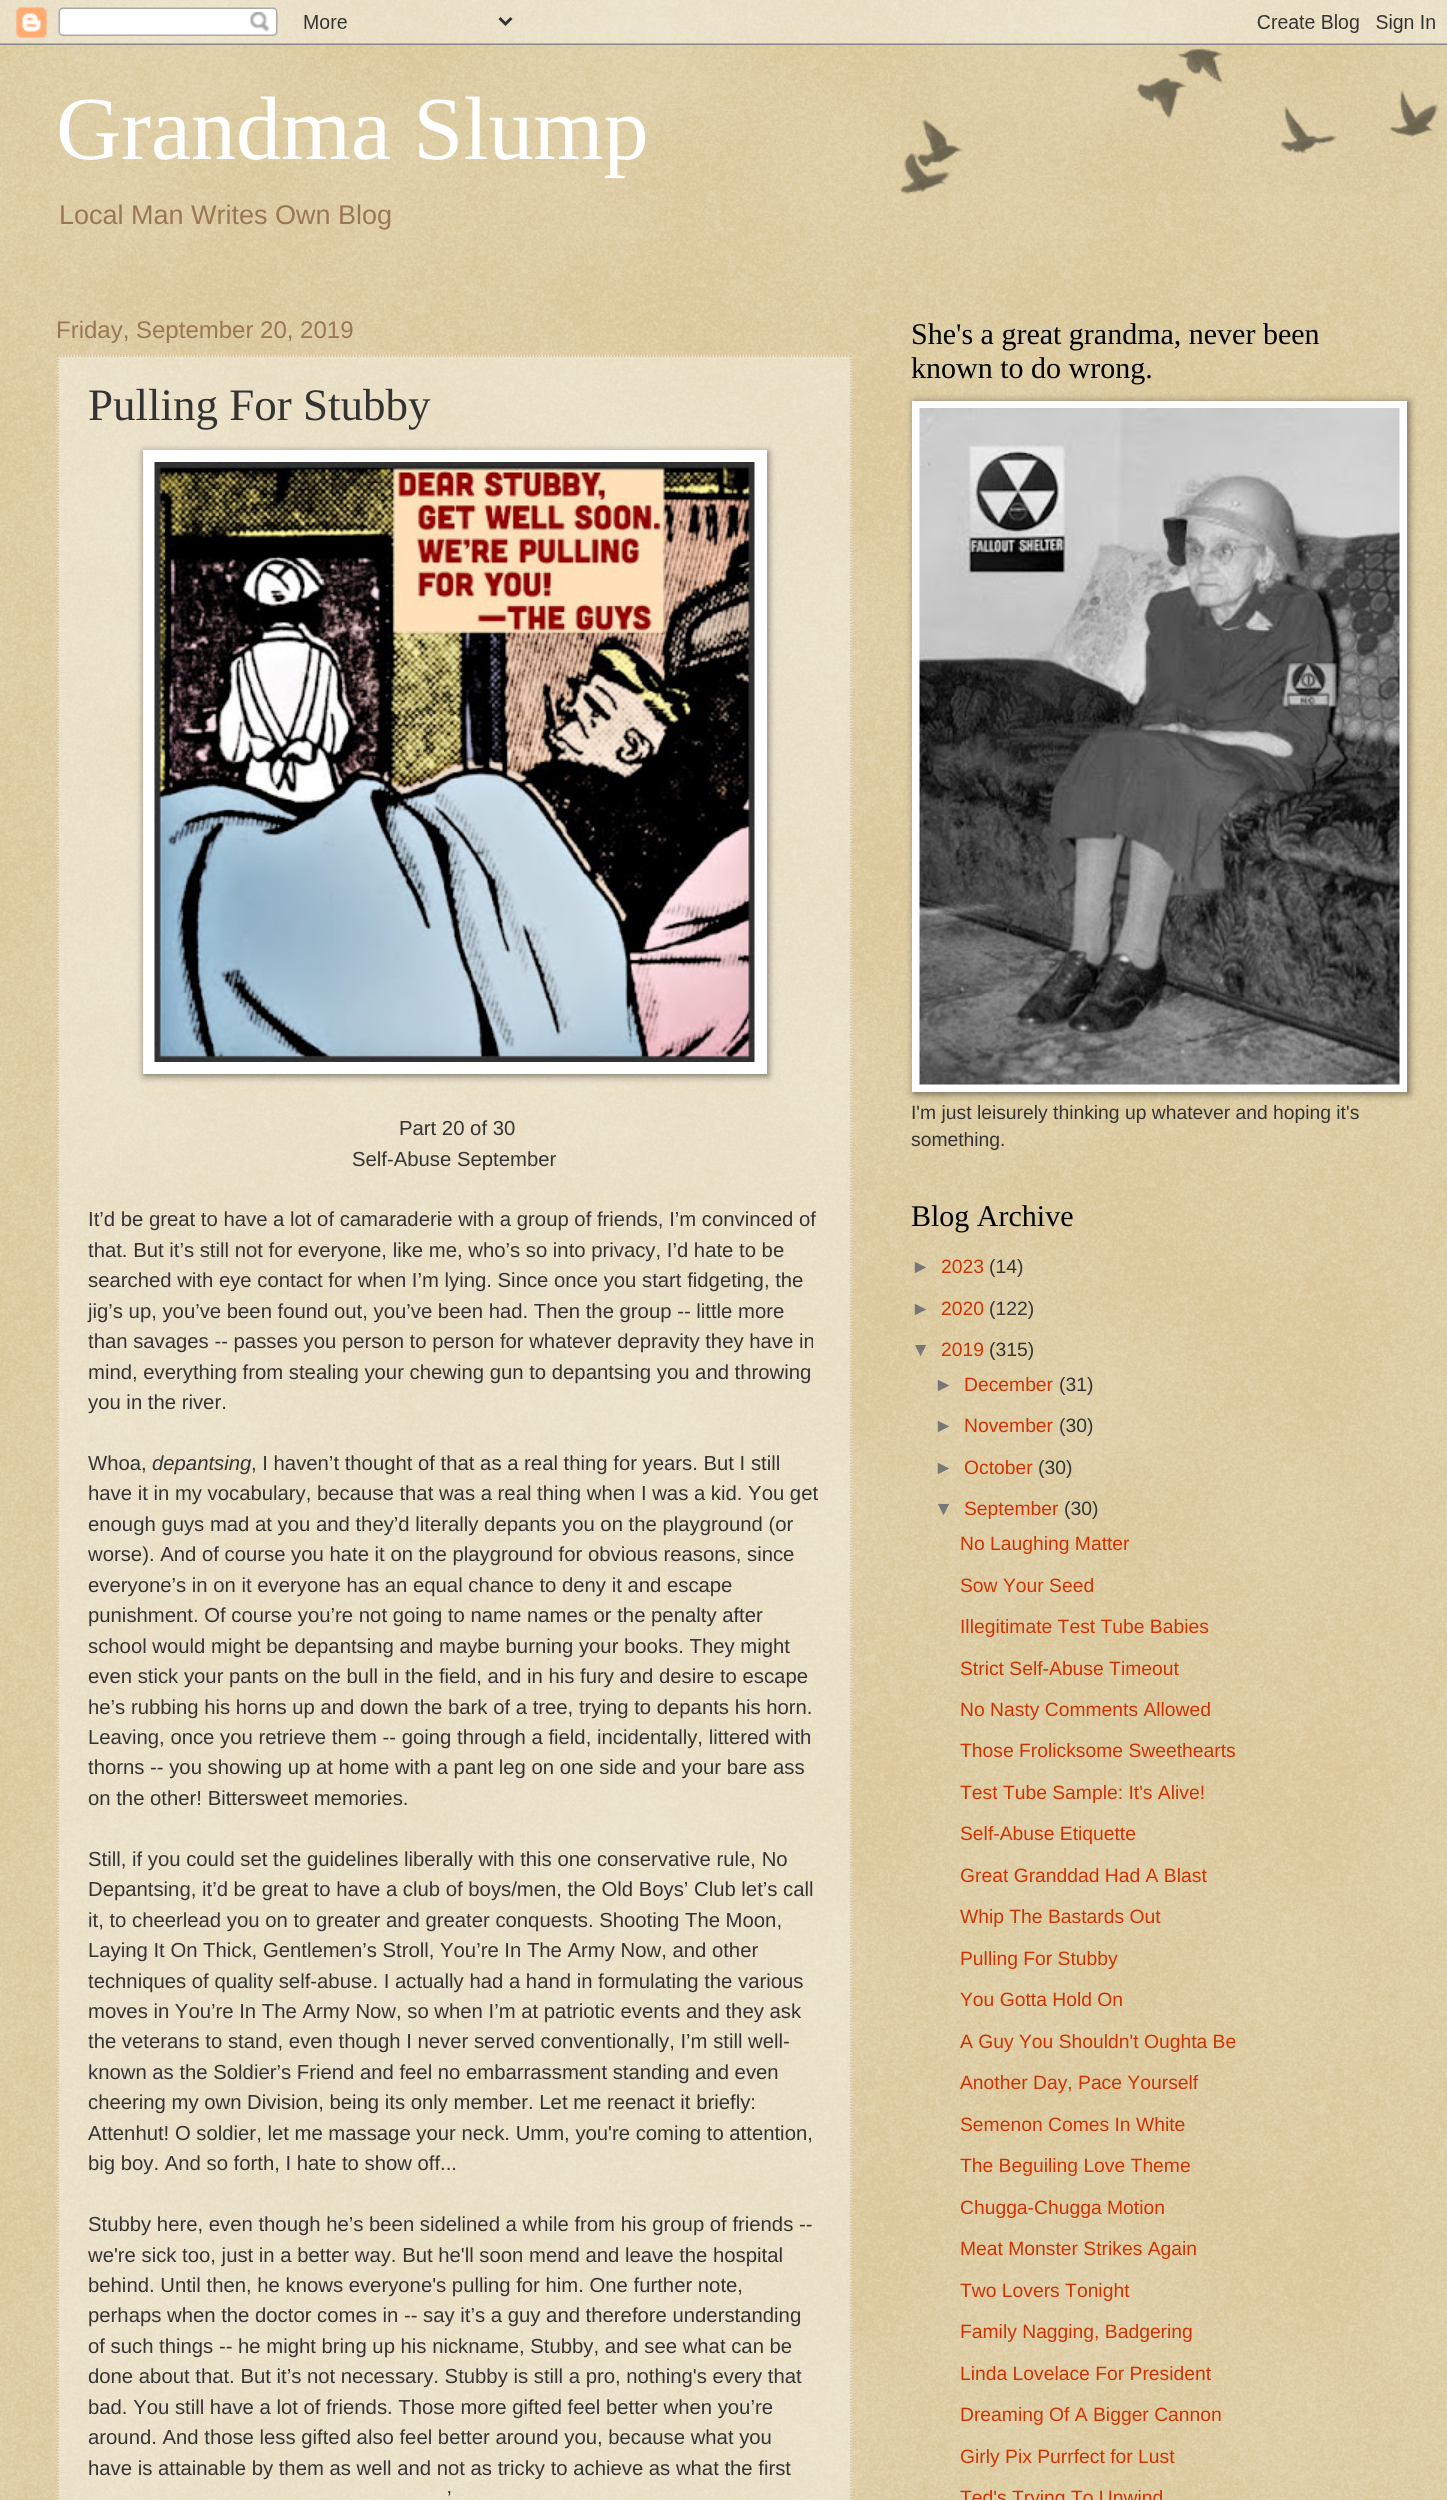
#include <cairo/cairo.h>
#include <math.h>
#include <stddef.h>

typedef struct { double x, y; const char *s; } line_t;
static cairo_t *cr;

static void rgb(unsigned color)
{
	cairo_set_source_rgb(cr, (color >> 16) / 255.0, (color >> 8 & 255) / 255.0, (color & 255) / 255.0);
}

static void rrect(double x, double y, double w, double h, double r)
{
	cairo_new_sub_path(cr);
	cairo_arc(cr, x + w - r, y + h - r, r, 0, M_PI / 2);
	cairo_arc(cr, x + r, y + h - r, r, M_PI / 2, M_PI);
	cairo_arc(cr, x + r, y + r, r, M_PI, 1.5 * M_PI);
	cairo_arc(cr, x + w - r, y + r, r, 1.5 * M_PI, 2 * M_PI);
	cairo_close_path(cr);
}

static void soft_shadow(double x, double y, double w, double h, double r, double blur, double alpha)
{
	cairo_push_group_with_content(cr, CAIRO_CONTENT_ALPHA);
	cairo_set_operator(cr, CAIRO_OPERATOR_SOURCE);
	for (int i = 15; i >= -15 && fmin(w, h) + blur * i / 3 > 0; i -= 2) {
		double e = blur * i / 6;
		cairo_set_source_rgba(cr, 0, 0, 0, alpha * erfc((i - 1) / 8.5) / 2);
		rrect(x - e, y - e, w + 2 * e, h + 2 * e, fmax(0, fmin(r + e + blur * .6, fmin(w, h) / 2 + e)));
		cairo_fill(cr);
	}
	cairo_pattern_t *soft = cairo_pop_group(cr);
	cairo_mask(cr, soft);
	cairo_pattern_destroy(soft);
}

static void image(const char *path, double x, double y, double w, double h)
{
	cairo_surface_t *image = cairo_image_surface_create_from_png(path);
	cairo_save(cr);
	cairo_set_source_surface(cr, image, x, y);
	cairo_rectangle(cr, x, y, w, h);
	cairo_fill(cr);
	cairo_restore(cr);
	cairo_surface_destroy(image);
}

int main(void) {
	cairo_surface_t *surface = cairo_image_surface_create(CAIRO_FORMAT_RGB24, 1447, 2500);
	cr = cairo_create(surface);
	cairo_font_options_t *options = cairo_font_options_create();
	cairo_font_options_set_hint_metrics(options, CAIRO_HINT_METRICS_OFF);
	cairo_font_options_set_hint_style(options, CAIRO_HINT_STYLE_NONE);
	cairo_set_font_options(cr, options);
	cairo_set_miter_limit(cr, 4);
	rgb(0xc0a154);
	cairo_paint(cr);
	image("img/1.png", 0, 0, 1447, 2500);
	image("img/2.png", 0, 0, 1447, 45);
	image("img/3.png", 900, 48, 539, 146);
	cairo_set_source_rgba(cr, 1, 1, 1, 0.4);
	cairo_rectangle(cr, 57, 355, 795, 2145);
	cairo_fill(cr);
	cairo_new_path(cr);
	cairo_move_to(cr, 57, 356);
	cairo_line_to(cr, 852, 356);
	rgb(0xccbb99);
	cairo_set_line_width(cr, 1.5);
	cairo_set_dash(cr, (double[]){1.5, 1.5}, 2, 0);
	cairo_stroke(cr);
	cairo_new_path(cr);
	cairo_move_to(cr, 851, 355.5);
	cairo_line_to(cr, 851, 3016.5);
	cairo_stroke(cr);
	cairo_new_path(cr);
	cairo_move_to(cr, 58, 355.5);
	cairo_line_to(cr, 58, 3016.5);
	cairo_stroke(cr);
	rgb(0x000000);
	soft_shadow(144, 452, 624, 624, 0, 4, 0.5);
	rgb(0xffffff);
	cairo_rectangle(cr, 143, 450, 624, 624);
	cairo_fill(cr);
	image("img/4.png", 154, 462, 601, 600);
	rgb(0x000000);
	soft_shadow(914, 402, 495, 692, 0, 4, 0.5);
	rgb(0xffffff);
	cairo_rectangle(cr, 912, 401, 495, 691);
	cairo_fill(cr);
	image("img/5.png", 919, 408, 481, 677);
	cairo_select_font_face(cr, "Liberation Serif", CAIRO_FONT_SLANT_NORMAL, CAIRO_FONT_WEIGHT_NORMAL);
	cairo_set_font_size(cr, 90);
	cairo_move_to(cr, 56, 159);
	cairo_show_text(cr, "Grandma Slump");
	cairo_select_font_face(cr, "Liberation Sans", CAIRO_FONT_SLANT_NORMAL, CAIRO_FONT_WEIGHT_NORMAL);
	cairo_set_font_size(cr, 27);
	rgb(0x997755);
	cairo_move_to(cr, 59, 224);
	cairo_show_text(cr, "Local Man Writes Own Blog");
	cairo_set_font_size(cr, 24);
	cairo_move_to(cr, 56, 338);
	cairo_show_text(cr, "Friday, September 20, 2019");
	cairo_select_font_face(cr, "Liberation Serif", CAIRO_FONT_SLANT_NORMAL, CAIRO_FONT_WEIGHT_NORMAL);
	cairo_set_font_size(cr, 45);
	rgb(0x333333);
	cairo_move_to(cr, 88, 420);
	cairo_show_text(cr, "Pulling For Stubby");
	cairo_select_font_face(cr, "Liberation Sans", CAIRO_FONT_SLANT_NORMAL, CAIRO_FONT_WEIGHT_NORMAL);
	cairo_set_font_size(cr, 20.3);
	{
		static const line_t items[] = {
			{399, 1135, "Part 20 of 30"},
			{352, 1166, "Self-Abuse September"},
			{88, 1226, "It’d be great to have a lot of camaraderie with a group of friends, I’m convinced of"},
			{88, 1257, "that. But it’s still not for everyone, like me, who’s so into privacy, I’d hate to be"},
			{88, 1287, "searched with eye contact for when I’m lying. Since once you start fidgeting, the"},
			{88, 1318, "jig’s up, you’ve been found out, you’ve been had. Then the group -- little more"},
			{88, 1348, "than savages -- passes you person to person for whatever depravity they have in"},
			{88, 1379, "mind, everything from stealing your chewing gun to depantsing you and throwing"},
			{88, 1409, "you in the river."},
			{88, 1470, "Whoa,"},
		};
		for (size_t i = 0; i < sizeof items / sizeof *items; i++) {
			cairo_move_to(cr, items[i].x, items[i].y);
			cairo_show_text(cr, items[i].s);
		}
	}
	cairo_select_font_face(cr, "Liberation Sans", CAIRO_FONT_SLANT_ITALIC, CAIRO_FONT_WEIGHT_NORMAL);
	cairo_move_to(cr, 152, 1470);
	cairo_show_text(cr, "depantsing");
	cairo_select_font_face(cr, "Liberation Sans", CAIRO_FONT_SLANT_NORMAL, CAIRO_FONT_WEIGHT_NORMAL);
	{
		static const line_t items[] = {
			{251, 1470, ", I haven’t thought of that as a real thing for years. But I still"},
			{88, 1500, "have it in my vocabulary, because that was a real thing when I was a kid. You get"},
			{88, 1531, "enough guys mad at you and they’d literally depants you on the playground (or"},
			{88, 1561, "worse). And of course you hate it on the playground for obvious reasons, since"},
			{88, 1592, "everyone’s in on it everyone has an equal chance to deny it and escape"},
			{88, 1622, "punishment. Of course you’re not going to name names or the penalty after"},
			{88, 1653, "school would might be depantsing and maybe burning your books. They might"},
			{88, 1683, "even stick your pants on the bull in the field, and in his fury and desire to escape"},
			{88, 1714, "he’s rubbing his horns up and down the bark of a tree, trying to depants his horn."},
			{88, 1744, "Leaving, once you retrieve them -- going through a field, incidentally, littered with"},
			{88, 1774, "thorns -- you showing up at home with a pant leg on one side and your bare ass"},
			{88, 1805, "on the other! Bittersweet memories."},
			{88, 1866, "Still, if you could set the guidelines liberally with this one conservative rule, No"},
			{88, 1896, "Depantsing, it’d be great to have a club of boys/men, the Old Boys’ Club let’s call"},
			{88, 1927, "it, to cheerlead you on to greater and greater conquests. Shooting The Moon,"},
			{88, 1957, "Laying It On Thick, Gentlemen’s Stroll, You’re In The Army Now, and other"},
			{88, 1988, "techniques of quality self-abuse. I actually had a hand in formulating the various"},
			{88, 2018, "moves in You’re In The Army Now, so when I’m at patriotic events and they ask"},
			{88, 2048, "the veterans to stand, even though I never served conventionally, I’m still well-"},
			{88, 2079, "known as the Soldier’s Friend and feel no embarrassment standing and even"},
			{88, 2109, "cheering my own Division, being its only member. Let me reenact it briefly:"},
			{88, 2140, "Attenhut! O soldier, let me massage your neck. Umm, you're coming to attention,"},
			{88, 2170, "big boy. And so forth, I hate to show off..."},
			{88, 2231, "Stubby here, even though he’s been sidelined a while from his group of friends --"},
			{88, 2262, "we're sick too, just in a better way. But he'll soon mend and leave the hospital"},
			{88, 2292, "behind. Until then, he knows everyone's pulling for him. One further note,"},
			{88, 2322, "perhaps when the doctor comes in -- say it’s a guy and therefore understanding"},
			{88, 2353, "of such things -- he might bring up his nickname, Stubby, and see what can be"},
			{88, 2383, "done about that. But it’s not necessary. Stubby is still a pro, nothing's every that"},
			{88, 2414, "bad. You still have a lot of friends. Those more gifted feel better when you’re"},
			{88, 2444, "around. And those less gifted also feel better around you, because what you"},
			{88, 2475, "have is attainable by them as well and not as tricky to achieve as what the first"},
			{447, 2505, "’"},
		};
		for (size_t i = 0; i < sizeof items / sizeof *items; i++) {
			cairo_move_to(cr, items[i].x, items[i].y);
			cairo_show_text(cr, items[i].s);
		}
	}
	cairo_select_font_face(cr, "Liberation Serif", CAIRO_FONT_SLANT_NORMAL, CAIRO_FONT_WEIGHT_NORMAL);
	cairo_set_font_size(cr, 30);
	rgb(0x000000);
	cairo_move_to(cr, 911, 344);
	cairo_show_text(cr, "She's a great grandma, never been");
	cairo_move_to(cr, 911, 378);
	cairo_show_text(cr, "known to do wrong.");
	cairo_select_font_face(cr, "Liberation Sans", CAIRO_FONT_SLANT_NORMAL, CAIRO_FONT_WEIGHT_NORMAL);
	cairo_set_font_size(cr, 19.3);
	rgb(0x333333);
	cairo_move_to(cr, 911, 1119);
	cairo_show_text(cr, "I'm just leisurely thinking up whatever and hoping it's");
	cairo_move_to(cr, 911, 1146);
	cairo_show_text(cr, "something.");
	cairo_select_font_face(cr, "Liberation Serif", CAIRO_FONT_SLANT_NORMAL, CAIRO_FONT_WEIGHT_NORMAL);
	cairo_set_font_size(cr, 30);
	rgb(0x000000);
	cairo_move_to(cr, 911, 1226);
	cairo_show_text(cr, "Blog Archive");
	cairo_select_font_face(cr, "Liberation Sans", CAIRO_FONT_SLANT_NORMAL, CAIRO_FONT_WEIGHT_NORMAL);
	cairo_set_font_size(cr, 19.3);
	rgb(0x777777);
	cairo_move_to(cr, 911, 1273);
	cairo_show_text(cr, "►");
	rgb(0xcc3300);
	cairo_move_to(cr, 941, 1273);
	cairo_show_text(cr, "2023");
	rgb(0x333333);
	cairo_move_to(cr, 989, 1273);
	cairo_show_text(cr, "(14)");
	rgb(0x777777);
	cairo_move_to(cr, 911, 1315);
	cairo_show_text(cr, "►");
	rgb(0xcc3300);
	cairo_move_to(cr, 941, 1315);
	cairo_show_text(cr, "2020");
	rgb(0x333333);
	cairo_move_to(cr, 989, 1315);
	cairo_show_text(cr, "(122)");
	rgb(0x777777);
	cairo_move_to(cr, 911, 1356);
	cairo_show_text(cr, "▼");
	rgb(0xcc3300);
	cairo_move_to(cr, 941, 1356);
	cairo_show_text(cr, "2019");
	rgb(0x333333);
	cairo_move_to(cr, 989, 1356);
	cairo_show_text(cr, "(315)");
	rgb(0x777777);
	cairo_move_to(cr, 934, 1391);
	cairo_show_text(cr, "►");
	rgb(0xcc3300);
	cairo_move_to(cr, 964, 1391);
	cairo_show_text(cr, "December");
	rgb(0x333333);
	cairo_move_to(cr, 1059, 1391);
	cairo_show_text(cr, "(31)");
	rgb(0x777777);
	cairo_move_to(cr, 934, 1432);
	cairo_show_text(cr, "►");
	rgb(0xcc3300);
	cairo_move_to(cr, 964, 1432);
	cairo_show_text(cr, "November");
	rgb(0x333333);
	cairo_move_to(cr, 1059, 1432);
	cairo_show_text(cr, "(30)");
	rgb(0x777777);
	cairo_move_to(cr, 934, 1474);
	cairo_show_text(cr, "►");
	rgb(0xcc3300);
	cairo_move_to(cr, 964, 1474);
	cairo_show_text(cr, "October");
	rgb(0x333333);
	cairo_move_to(cr, 1038, 1474);
	cairo_show_text(cr, "(30)");
	rgb(0x777777);
	cairo_move_to(cr, 934, 1515);
	cairo_show_text(cr, "▼");
	rgb(0xcc3300);
	cairo_move_to(cr, 964, 1515);
	cairo_show_text(cr, "September");
	rgb(0x333333);
	cairo_move_to(cr, 1064, 1515);
	cairo_show_text(cr, "(30)");
	rgb(0xcc3300);
	{
		static const line_t items[] = {
			{960, 1550, "No Laughing Matter"},
			{960, 1592, "Sow Your Seed"},
			{960, 1633, "Illegitimate Test Tube Babies"},
			{960, 1675, "Strict Self-Abuse Timeout"},
			{960, 1716, "No Nasty Comments Allowed"},
			{960, 1757, "Those Frolicksome Sweethearts"},
			{960, 1799, "Test Tube Sample: It's Alive!"},
			{960, 1840, "Self-Abuse Etiquette"},
			{960, 1882, "Great Granddad Had A Blast"},
			{960, 1923, "Whip The Bastards Out"},
			{960, 1965, "Pulling For Stubby"},
			{960, 2006, "You Gotta Hold On"},
			{960, 2048, "A Guy You Shouldn't Oughta Be"},
			{960, 2089, "Another Day, Pace Yourself"},
			{960, 2131, "Semenon Comes In White"},
			{960, 2172, "The Beguiling Love Theme"},
			{960, 2214, "Chugga-Chugga Motion"},
			{960, 2255, "Meat Monster Strikes Again"},
			{960, 2297, "Two Lovers Tonight"},
			{960, 2338, "Family Nagging, Badgering"},
			{960, 2380, "Linda Lovelace For President"},
			{960, 2421, "Dreaming Of A Bigger Cannon"},
			{960, 2463, "Girly Pix Purrfect for Lust"},
			{960, 2504, "Ted's Trying To Unwind"},
		};
		for (size_t i = 0; i < sizeof items / sizeof *items; i++) {
			cairo_move_to(cr, items[i].x, items[i].y);
			cairo_show_text(cr, items[i].s);
		}
	}
	cairo_surface_write_to_png(surface, "page.png");
	cairo_font_options_destroy(options);
	cairo_destroy(cr);
	cairo_surface_destroy(surface);
	return 0;
}
